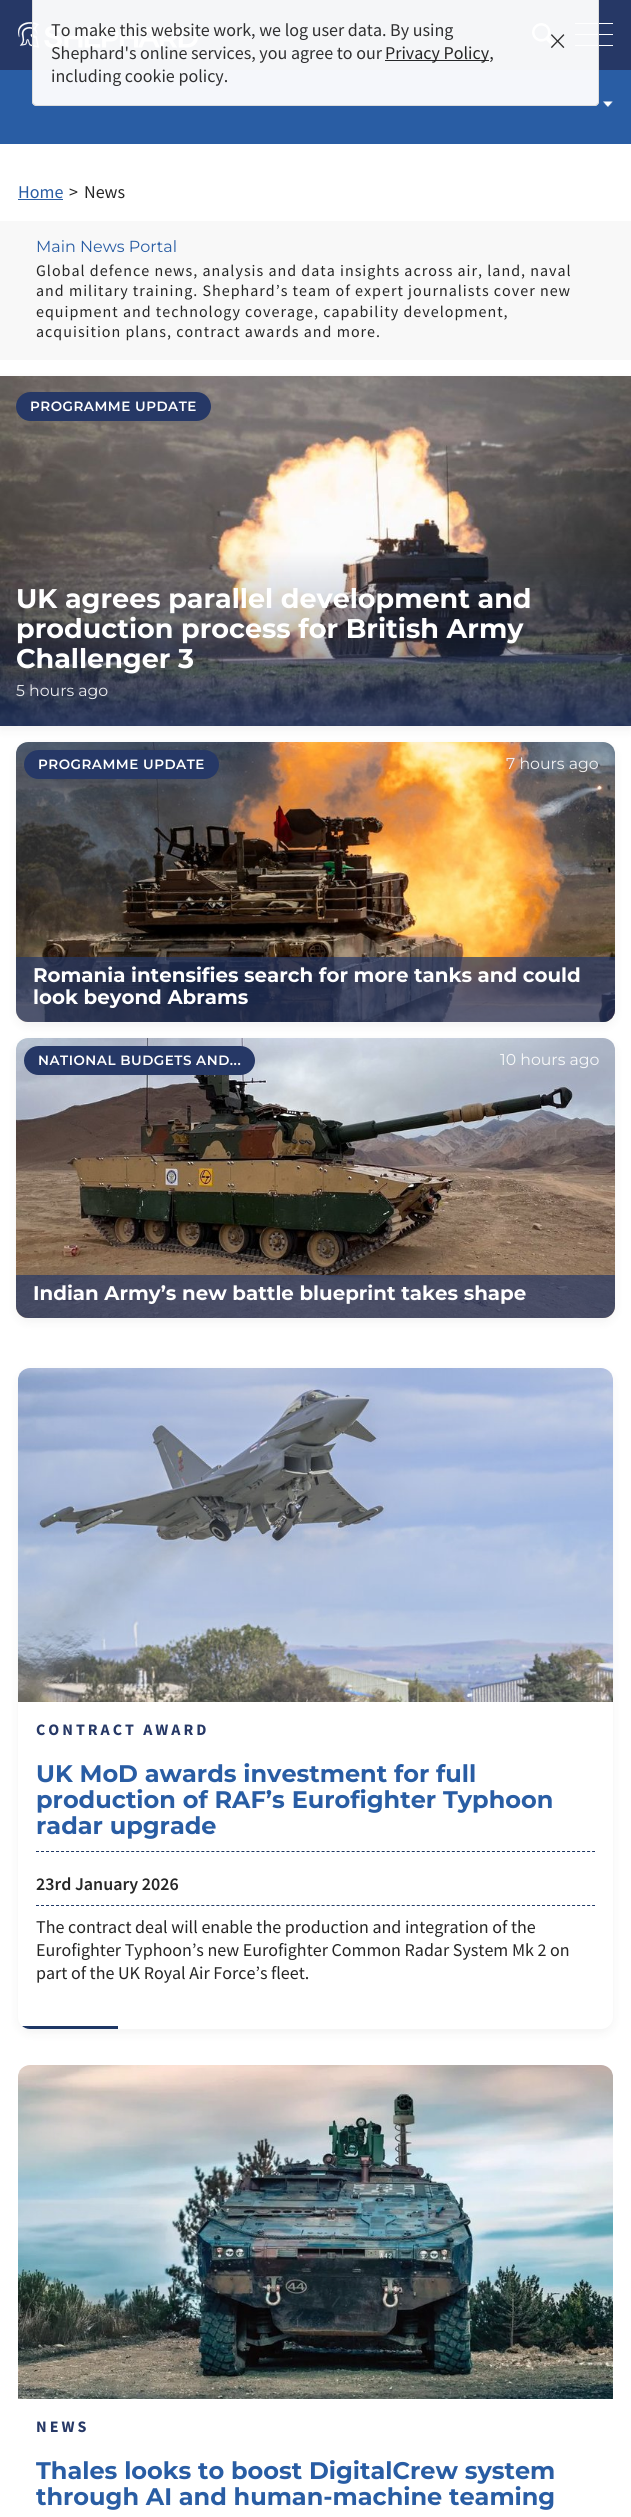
#include <cairo/cairo.h>
#include <math.h>
#include <stddef.h>

typedef struct { double x, y; const char *s; } line_t;
static cairo_t *cr;

static void rgb(unsigned color)
{
	cairo_set_source_rgb(cr, (color >> 16) / 255.0, (color >> 8 & 255) / 255.0, (color & 255) / 255.0);
}

static void tracked(double x, double y, const char *s, double letter, double word)
{
	cairo_move_to(cr, x, y);
	while (*s) {
		char ch[5] = {0};
		int n = 0;
		do ch[n++] = *s++; while ((*s & 0xC0) == 0x80);
		cairo_show_text(cr, ch);
		cairo_rel_move_to(cr, letter + word * (*ch == ' '), 0);
	}
}

static void rrect(double x, double y, double w, double h, double r)
{
	cairo_new_sub_path(cr);
	cairo_arc(cr, x + w - r, y + h - r, r, 0, M_PI / 2);
	cairo_arc(cr, x + r, y + h - r, r, M_PI / 2, M_PI);
	cairo_arc(cr, x + r, y + r, r, M_PI, 1.5 * M_PI);
	cairo_arc(cr, x + w - r, y + r, r, 1.5 * M_PI, 2 * M_PI);
	cairo_close_path(cr);
}

static void soft_shadow(double x, double y, double w, double h, double r, double blur, double alpha)
{
	cairo_push_group_with_content(cr, CAIRO_CONTENT_ALPHA);
	cairo_set_operator(cr, CAIRO_OPERATOR_SOURCE);
	for (int i = 15; i >= -15 && fmin(w, h) + blur * i / 3 > 0; i -= 2) {
		double e = blur * i / 6;
		cairo_set_source_rgba(cr, 0, 0, 0, alpha * erfc((i - 1) / 8.5) / 2);
		rrect(x - e, y - e, w + 2 * e, h + 2 * e, fmax(0, fmin(r + e + blur * .6, fmin(w, h) / 2 + e)));
		cairo_fill(cr);
	}
	cairo_pattern_t *soft = cairo_pop_group(cr);
	cairo_mask(cr, soft);
	cairo_pattern_destroy(soft);
}

static void image(const char *path, double x, double y, double w, double h)
{
	cairo_surface_t *image = cairo_image_surface_create_from_png(path);
	cairo_save(cr);
	cairo_set_source_surface(cr, image, x, y);
	cairo_rectangle(cr, x, y, w, h);
	cairo_fill(cr);
	cairo_restore(cr);
	cairo_surface_destroy(image);
}

int main(void) {
	cairo_surface_t *surface = cairo_image_surface_create(CAIRO_FORMAT_RGB24, 631, 2517);
	cr = cairo_create(surface);
	cairo_font_options_t *options = cairo_font_options_create();
	cairo_font_options_set_hint_metrics(options, CAIRO_HINT_METRICS_OFF);
	cairo_font_options_set_hint_style(options, CAIRO_HINT_STYLE_NONE);
	cairo_set_font_options(cr, options);
	cairo_set_miter_limit(cr, 4);
	rgb(0xffffff);
	cairo_paint(cr);
	rgb(0x263866);
	cairo_rectangle(cr, 0, 0, 631, 70);
	cairo_fill(cr);
	image("img/1.png", 18, 22, 180, 26);
	image("img/2.png", 532, 23, 24, 24);
	image("img/3.png", 575, 23, 38, 23);
	rgb(0x295da4);
	cairo_rectangle(cr, 0, 70, 631, 74);
	cairo_fill(cr);
	cairo_set_source_rgba(cr, 1, 1, 1, 0.95);
	cairo_new_path(cr);
	cairo_move_to(cr, 32, 0);
	cairo_line_to(cr, 599, 0);
	cairo_line_to(cr, 599, 101);
	cairo_curve_to(cr, 599, 104, 597, 106, 594, 106);
	cairo_line_to(cr, 37, 106);
	cairo_curve_to(cr, 34, 106, 32, 104, 32, 101);
	cairo_close_path(cr);
	cairo_fill(cr);
	cairo_set_source_rgba(cr, 0.867, 0.867, 0.863, 0.95);
	cairo_set_fill_rule(cr, CAIRO_FILL_RULE_EVEN_ODD);
	cairo_new_path(cr);
	cairo_move_to(cr, 32, 0);
	cairo_line_to(cr, 599, 0);
	cairo_line_to(cr, 599, 102);
	cairo_curve_to(cr, 599, 104, 597, 106, 595, 106);
	cairo_line_to(cr, 37, 106);
	cairo_curve_to(cr, 34, 106, 32, 104, 32, 102);
	cairo_close_path(cr);
	cairo_move_to(cr, 33, 0);
	cairo_line_to(cr, 598, 0);
	cairo_line_to(cr, 598, 102);
	cairo_curve_to(cr, 598, 103, 596, 105, 595, 105);
	cairo_line_to(cr, 37, 105);
	cairo_curve_to(cr, 35, 105, 33, 103, 33, 102);
	cairo_close_path(cr);
	cairo_fill(cr);
	rgb(0x262729);
	cairo_rectangle(cr, 385, 60, 104, 1);
	cairo_fill(cr);
	image("img/4.png", 603, 101, 10, 6);
	rgb(0x295da4);
	cairo_rectangle(cr, 18, 199, 45, 1);
	cairo_fill(cr);
	rgb(0xf8f8f8);
	cairo_rectangle(cr, 0, 221, 631, 139);
	cairo_fill(cr);
	rgb(0x000000);
	soft_shadow(0, 380, 631, 350, 0, 5, 0.05);
	image("img/5.png", 0, 376, 631, 350);
	rgb(0x263866);
	rrect(16, 392, 195, 29, 14.5);
	cairo_fill(cr);
	rgb(0x000000);
	soft_shadow(16, 746, 599, 280, 12, 5, 0.05);
	image("img/6.png", 16, 742, 599, 280);
	rgb(0x263866);
	rrect(24, 750, 195, 29, 14.5);
	cairo_fill(cr);
	cairo_set_source_rgba(cr, 0.149, 0.22, 0.4, 0.7);
	cairo_new_path(cr);
	cairo_move_to(cr, 16, 957);
	cairo_line_to(cr, 615, 957);
	cairo_line_to(cr, 615, 1010);
	cairo_curve_to(cr, 615, 1016.5, 609.5, 1022, 603, 1022);
	cairo_line_to(cr, 28, 1022);
	cairo_curve_to(cr, 21.5, 1022, 16, 1016.5, 16, 1010);
	cairo_close_path(cr);
	cairo_fill(cr);
	rgb(0x000000);
	soft_shadow(16, 1042, 599, 280, 12, 5, 0.05);
	image("img/7.png", 16, 1038, 599, 280);
	rgb(0x263866);
	rrect(24, 1046, 231, 29, 14.5);
	cairo_fill(cr);
	cairo_set_source_rgba(cr, 0.149, 0.22, 0.4, 0.7);
	cairo_new_path(cr);
	cairo_move_to(cr, 16, 1275);
	cairo_line_to(cr, 615, 1275);
	cairo_line_to(cr, 615, 1306);
	cairo_curve_to(cr, 615, 1312.5, 609.5, 1318, 603, 1318);
	cairo_line_to(cr, 28, 1318);
	cairo_curve_to(cr, 21.5, 1318, 16, 1312.5, 16, 1306);
	cairo_close_path(cr);
	cairo_fill(cr);
	rgb(0x000000);
	soft_shadow(18, 1372, 595, 661, 12, 5, 0.05);
	rgb(0xffffff);
	rrect(18, 1368, 595, 661, 12);
	cairo_fill(cr);
	image("img/8.png", 18, 1368, 595, 334);
	cairo_new_path(cr);
	cairo_move_to(cr, 36, 1851.5);
	cairo_line_to(cr, 595, 1851.5);
	rgb(0x1e3765);
	cairo_set_line_width(cr, 1);
	cairo_set_dash(cr, (double[]){3, 2.01}, 2, 0);
	cairo_stroke(cr);
	cairo_new_path(cr);
	cairo_move_to(cr, 36, 1905.5);
	cairo_line_to(cr, 595, 1905.5);
	cairo_stroke(cr);
	cairo_save(cr);
	cairo_set_fill_rule(cr, CAIRO_FILL_RULE_WINDING);
	rrect(18, 1368, 595, 661, 12);
	cairo_clip(cr);
	cairo_rectangle(cr, 18, 2026, 100, 3);
	cairo_fill(cr);
	cairo_restore(cr);
	image("img/9.png", 18, 2065, 595, 334);
	cairo_select_font_face(cr, "Source Sans Pro", CAIRO_FONT_SLANT_NORMAL, CAIRO_FONT_WEIGHT_NORMAL);
	cairo_set_font_size(cr, 18);
	rgb(0x303031);
	cairo_move_to(cr, 51, 36);
	cairo_show_text(cr, "To make this website work, we log user data. By using");
	cairo_move_to(cr, 51, 59);
	cairo_show_text(cr, "Shephard's online services, you agree to our");
	rgb(0x262626);
	cairo_move_to(cr, 385, 59);
	cairo_show_text(cr, "Privacy Policy,");
	rgb(0x303031);
	cairo_move_to(cr, 51, 82);
	cairo_show_text(cr, "including cookie policy.");
	cairo_select_font_face(cr, "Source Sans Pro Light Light", CAIRO_FONT_SLANT_NORMAL, CAIRO_FONT_WEIGHT_NORMAL);
	cairo_set_font_size(cr, 36);
	cairo_move_to(cr, 549, 53);
	cairo_show_text(cr, "×");
	cairo_select_font_face(cr, "Source Sans Pro", CAIRO_FONT_SLANT_NORMAL, CAIRO_FONT_WEIGHT_NORMAL);
	cairo_set_font_size(cr, 18);
	rgb(0x295da4);
	cairo_move_to(cr, 18, 198);
	cairo_show_text(cr, "Home");
	rgb(0x262626);
	cairo_move_to(cr, 69, 198);
	cairo_show_text(cr, ">");
	cairo_move_to(cr, 84, 198);
	cairo_show_text(cr, "News");
	cairo_select_font_face(cr, "Montserrat Thin", CAIRO_FONT_SLANT_NORMAL, CAIRO_FONT_WEIGHT_NORMAL);
	cairo_set_font_size(cr, 16);
	rgb(0x295da4);
	cairo_move_to(cr, 36, 252);
	cairo_show_text(cr, "Main News Portal");
	cairo_select_font_face(cr, "Source Sans Pro", CAIRO_FONT_SLANT_NORMAL, CAIRO_FONT_WEIGHT_NORMAL);
	rgb(0x262626);
	{
		static const line_t items[] = {
			{36, 276, "Global defence news, analysis and data insights across air, land, naval"},
			{36, 296, "and military training. Shephard’s team of expert journalists cover new"},
			{36, 317, "equipment and technology coverage, capability development,"},
			{36, 337, "acquisition plans, contract awards and more."},
		};
		for (size_t i = 0; i < sizeof items / sizeof *items; i++) {
			tracked(items[i].x, items[i].y, items[i].s, 1, 0);
		}
	}
	cairo_select_font_face(cr, "Montserrat SemiBold", CAIRO_FONT_SLANT_NORMAL, CAIRO_FONT_WEIGHT_NORMAL);
	cairo_set_font_size(cr, 13.5);
	rgb(0xffffff);
	tracked(30, 411, "PROGRAMME UPDATE", 0.5, 0);
	cairo_select_font_face(cr, "Montserrat", CAIRO_FONT_SLANT_NORMAL, CAIRO_FONT_WEIGHT_BOLD);
	cairo_set_font_size(cr, 27);
	{
		static const line_t items[] = {
			{16, 608, "UK agrees parallel development and"},
			{16, 638, "production process for British Army"},
			{16, 668, "Challenger 3"},
		};
		for (size_t i = 0; i < sizeof items / sizeof *items; i++) {
			cairo_move_to(cr, items[i].x, items[i].y);
			cairo_show_text(cr, items[i].s);
		}
	}
	cairo_select_font_face(cr, "Montserrat Thin", CAIRO_FONT_SLANT_NORMAL, CAIRO_FONT_WEIGHT_NORMAL);
	cairo_set_font_size(cr, 15.75);
	rgb(0xebecee);
	cairo_move_to(cr, 16, 696);
	cairo_show_text(cr, "5 hours ago");
	cairo_select_font_face(cr, "Montserrat SemiBold", CAIRO_FONT_SLANT_NORMAL, CAIRO_FONT_WEIGHT_NORMAL);
	cairo_set_font_size(cr, 13.5);
	rgb(0xffffff);
	tracked(38, 769, "PROGRAMME UPDATE", 0.5, 0);
	cairo_select_font_face(cr, "Montserrat Thin", CAIRO_FONT_SLANT_NORMAL, CAIRO_FONT_WEIGHT_NORMAL);
	cairo_set_font_size(cr, 15.75);
	rgb(0xf2f1f2);
	cairo_move_to(cr, 506, 769);
	cairo_show_text(cr, "7 hours ago");
	cairo_select_font_face(cr, "Montserrat", CAIRO_FONT_SLANT_NORMAL, CAIRO_FONT_WEIGHT_BOLD);
	cairo_set_font_size(cr, 19.8);
	rgb(0xffffff);
	cairo_move_to(cr, 33, 982);
	cairo_show_text(cr, "Romania intensifies search for more tanks and could");
	cairo_move_to(cr, 33, 1004);
	cairo_show_text(cr, "look beyond Abrams");
	cairo_select_font_face(cr, "Montserrat SemiBold", CAIRO_FONT_SLANT_NORMAL, CAIRO_FONT_WEIGHT_NORMAL);
	cairo_set_font_size(cr, 13.5);
	tracked(38, 1065, "NATIONAL BUDGETS AND...", 0.5, 0);
	cairo_select_font_face(cr, "Montserrat Thin", CAIRO_FONT_SLANT_NORMAL, CAIRO_FONT_WEIGHT_NORMAL);
	cairo_set_font_size(cr, 15.75);
	rgb(0xf7f8f9);
	cairo_move_to(cr, 500, 1065);
	cairo_show_text(cr, "10 hours ago");
	cairo_select_font_face(cr, "Montserrat", CAIRO_FONT_SLANT_NORMAL, CAIRO_FONT_WEIGHT_BOLD);
	cairo_set_font_size(cr, 19.8);
	rgb(0xffffff);
	cairo_move_to(cr, 33, 1300);
	cairo_show_text(cr, "Indian Army’s new battle blueprint takes shape");
	cairo_select_font_face(cr, "Source Sans Pro", CAIRO_FONT_SLANT_NORMAL, CAIRO_FONT_WEIGHT_BOLD);
	cairo_set_font_size(cr, 16);
	rgb(0x263866);
	tracked(36, 1735, "CONTRACT AWARD", 3, 0);
	cairo_select_font_face(cr, "Montserrat", CAIRO_FONT_SLANT_NORMAL, CAIRO_FONT_WEIGHT_BOLD);
	cairo_set_font_size(cr, 24);
	rgb(0x295da4);
	{
		static const line_t items[] = {
			{36, 1782, "UK MoD awards investment for full"},
			{36, 1808, "production of RAF’s Eurofighter Typhoon"},
			{36, 1834, "radar upgrade"},
		};
		for (size_t i = 0; i < sizeof items / sizeof *items; i++) {
			cairo_move_to(cr, items[i].x, items[i].y);
			cairo_show_text(cr, items[i].s);
		}
	}
	cairo_select_font_face(cr, "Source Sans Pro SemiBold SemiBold", CAIRO_FONT_SLANT_NORMAL, CAIRO_FONT_WEIGHT_NORMAL);
	cairo_set_font_size(cr, 18);
	rgb(0x262626);
	cairo_move_to(cr, 36, 1890);
	cairo_show_text(cr, "23rd January 2026");
	cairo_select_font_face(cr, "Source Sans Pro", CAIRO_FONT_SLANT_NORMAL, CAIRO_FONT_WEIGHT_NORMAL);
	{
		static const line_t items[] = {
			{36, 1933, "The contract deal will enable the production and integration of the"},
			{36, 1956, "Eurofighter Typhoon’s new Eurofighter Common Radar System Mk 2 on"},
			{36, 1979, "part of the UK Royal Air Force’s fleet."},
		};
		for (size_t i = 0; i < sizeof items / sizeof *items; i++) {
			cairo_move_to(cr, items[i].x, items[i].y);
			cairo_show_text(cr, items[i].s);
		}
	}
	cairo_select_font_face(cr, "Source Sans Pro", CAIRO_FONT_SLANT_NORMAL, CAIRO_FONT_WEIGHT_BOLD);
	cairo_set_font_size(cr, 16);
	rgb(0x263866);
	tracked(36, 2432, "NEWS", 3, 0);
	cairo_select_font_face(cr, "Montserrat", CAIRO_FONT_SLANT_NORMAL, CAIRO_FONT_WEIGHT_BOLD);
	cairo_set_font_size(cr, 24);
	rgb(0x295da4);
	cairo_move_to(cr, 36, 2479);
	cairo_show_text(cr, "Thales looks to boost DigitalCrew system");
	cairo_move_to(cr, 36, 2505);
	cairo_show_text(cr, "through AI and human-machine teaming");
	cairo_surface_write_to_png(surface, "page.png");
	cairo_font_options_destroy(options);
	cairo_destroy(cr);
	cairo_surface_destroy(surface);
	return 0;
}
